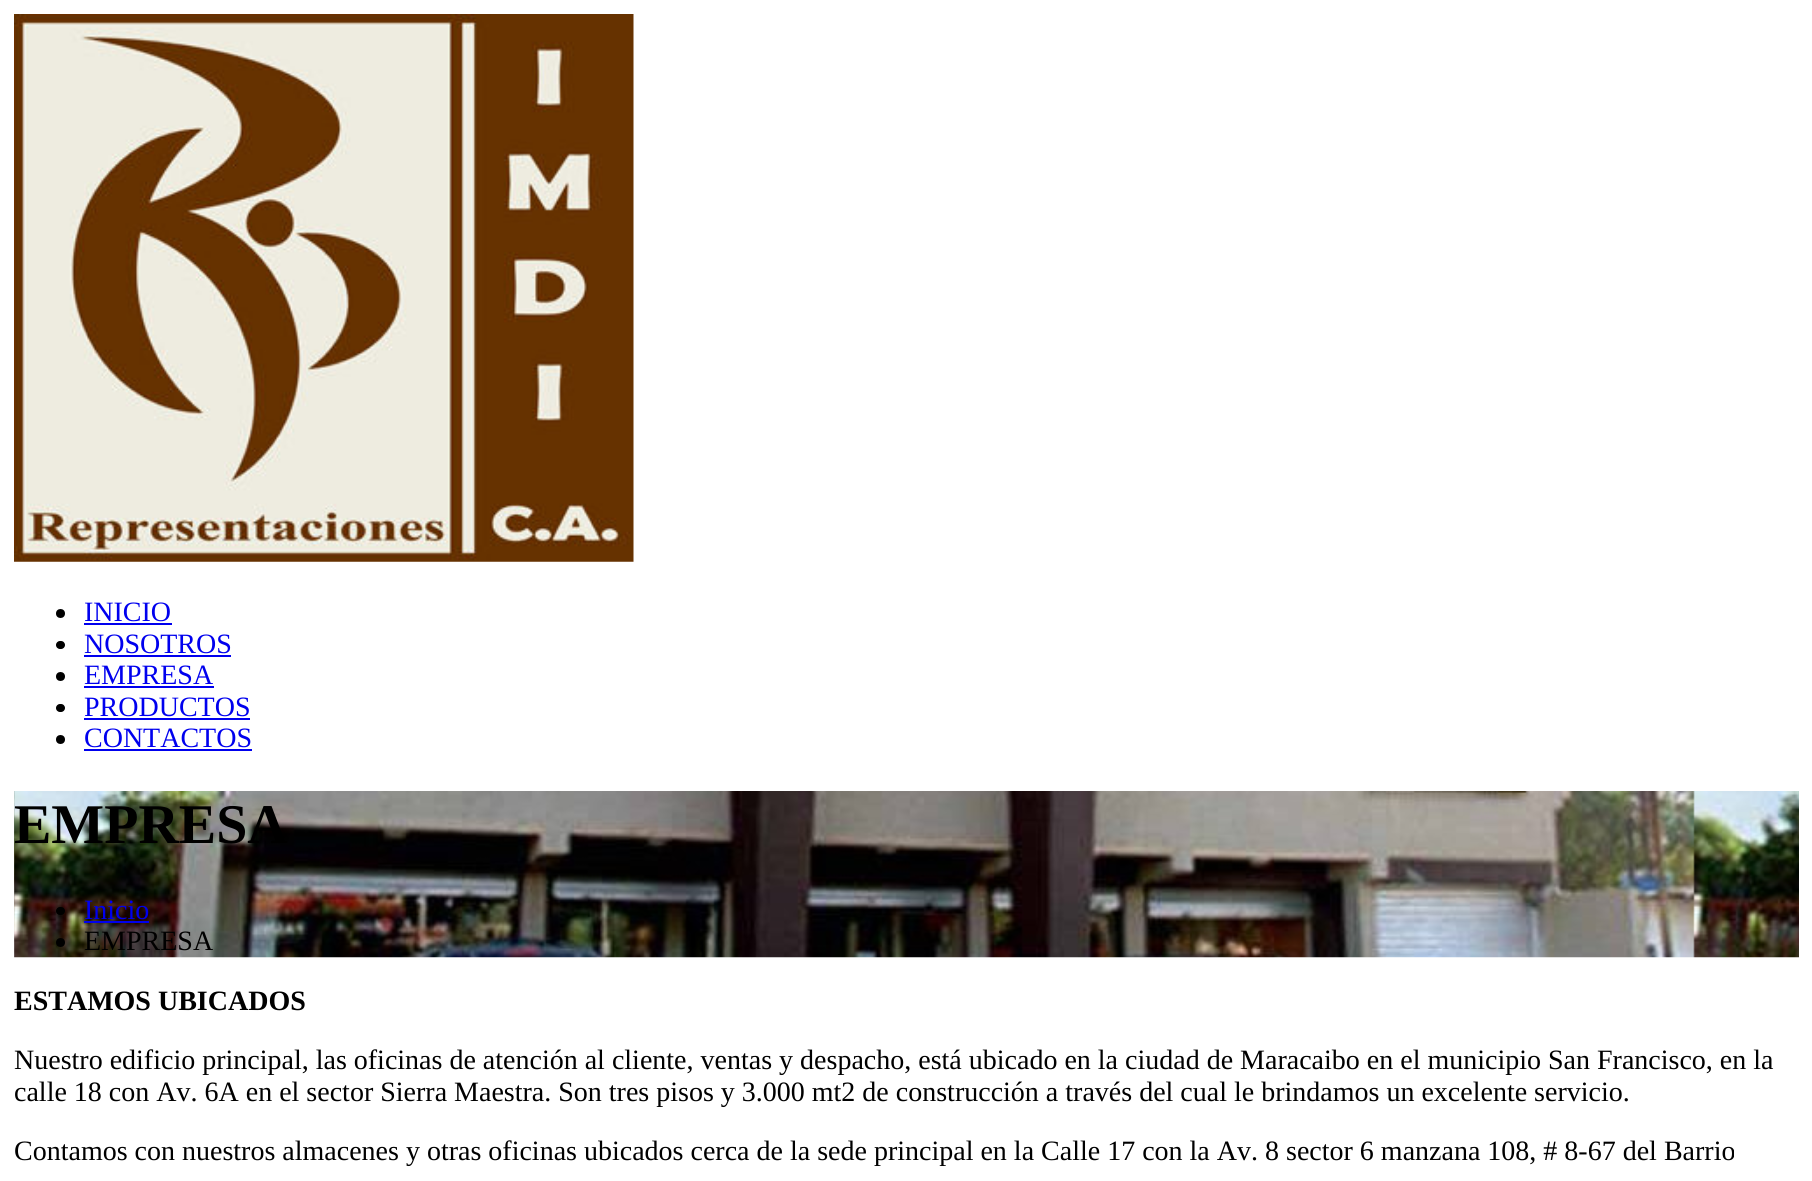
#include <cairo/cairo.h>
#include <math.h>
#include <stddef.h>

typedef struct { double x, y; const char *s; } line_t;
static cairo_t *cr;

static void rgb(unsigned color)
{
	cairo_set_source_rgb(cr, (color >> 16) / 255.0, (color >> 8 & 255) / 255.0, (color & 255) / 255.0);
}

static void rrect(double x, double y, double w, double h, double r)
{
	cairo_new_sub_path(cr);
	cairo_arc(cr, x + w - r, y + h - r, r, 0, M_PI / 2);
	cairo_arc(cr, x + r, y + h - r, r, M_PI / 2, M_PI);
	cairo_arc(cr, x + r, y + r, r, M_PI, 1.5 * M_PI);
	cairo_arc(cr, x + w - r, y + r, r, 1.5 * M_PI, 2 * M_PI);
	cairo_close_path(cr);
}

static void image(const char *path, double x, double y, double w, double h)
{
	cairo_surface_t *image = cairo_image_surface_create_from_png(path);
	cairo_save(cr);
	cairo_set_source_surface(cr, image, x, y);
	cairo_rectangle(cr, x, y, w, h);
	cairo_fill(cr);
	cairo_restore(cr);
	cairo_surface_destroy(image);
}

int main(void) {
	cairo_surface_t *surface = cairo_image_surface_create(CAIRO_FORMAT_RGB24, 1812, 1181);
	cr = cairo_create(surface);
	cairo_font_options_t *options = cairo_font_options_create();
	cairo_font_options_set_hint_metrics(options, CAIRO_HINT_METRICS_OFF);
	cairo_font_options_set_hint_style(options, CAIRO_HINT_STYLE_NONE);
	cairo_set_font_options(cr, options);
	cairo_set_miter_limit(cr, 4);
	rgb(0xffffff);
	cairo_paint(cr);
	image("img/1.png", 14, 14, 620, 548);
	rgb(0x000000);
	cairo_arc(cr, 60.5, 613.5, 4.5, 0, 2 * M_PI);
	cairo_fill(cr);
	rgb(0x0000ee);
	cairo_rectangle(cr, 84, 623, 88, 2);
	cairo_fill(cr);
	rgb(0x000000);
	rrect(56, 641, 9, 8, 4);
	cairo_fill(cr);
	rgb(0x0000ee);
	cairo_rectangle(cr, 84, 655, 147, 2);
	cairo_fill(cr);
	rgb(0x000000);
	cairo_arc(cr, 60.5, 676.5, 4.5, 0, 2 * M_PI);
	cairo_fill(cr);
	rgb(0x0000ee);
	cairo_rectangle(cr, 84, 686, 130, 2);
	cairo_fill(cr);
	rgb(0x000000);
	rrect(56, 704, 9, 8, 4);
	cairo_fill(cr);
	rgb(0x0000ee);
	cairo_rectangle(cr, 84, 718, 166, 2);
	cairo_fill(cr);
	rgb(0x000000);
	cairo_arc(cr, 60.5, 739.5, 4.5, 0, 2 * M_PI);
	cairo_fill(cr);
	rgb(0x0000ee);
	cairo_rectangle(cr, 84, 749, 168, 2);
	cairo_fill(cr);
	image("img/2.png", 14, 791, 1785, 167);
	rgb(0x000000);
	rrect(56, 907, 9, 8, 4);
	cairo_fill(cr);
	rgb(0x0000ee);
	cairo_rectangle(cr, 84, 921, 65, 2);
	cairo_fill(cr);
	rgb(0x000000);
	cairo_arc(cr, 60.5, 942.5, 4.5, 0, 2 * M_PI);
	cairo_fill(cr);
	cairo_select_font_face(cr, "Liberation Serif", CAIRO_FONT_SLANT_NORMAL, CAIRO_FONT_WEIGHT_NORMAL);
	cairo_set_font_size(cr, 28);
	rgb(0x0000ee);
	{
		static const line_t items[] = {
			{84, 621, "INICIO"},
			{84, 653, "NOSOTROS"},
			{84, 684, "EMPRESA"},
			{84, 716, "PRODUCTOS"},
			{84, 747, "CONTACTOS"},
		};
		for (size_t i = 0; i < sizeof items / sizeof *items; i++) {
			cairo_move_to(cr, items[i].x, items[i].y);
			cairo_show_text(cr, items[i].s);
		}
	}
	cairo_select_font_face(cr, "Liberation Serif", CAIRO_FONT_SLANT_NORMAL, CAIRO_FONT_WEIGHT_BOLD);
	cairo_set_font_size(cr, 56);
	rgb(0x000000);
	cairo_move_to(cr, 14, 843);
	cairo_show_text(cr, "EMPRESA");
	cairo_select_font_face(cr, "Liberation Serif", CAIRO_FONT_SLANT_NORMAL, CAIRO_FONT_WEIGHT_NORMAL);
	cairo_set_font_size(cr, 28);
	rgb(0x0000ee);
	cairo_move_to(cr, 84, 919);
	cairo_show_text(cr, "Inicio");
	rgb(0x000000);
	cairo_move_to(cr, 84, 950);
	cairo_show_text(cr, "EMPRESA");
	cairo_select_font_face(cr, "Liberation Serif", CAIRO_FONT_SLANT_NORMAL, CAIRO_FONT_WEIGHT_BOLD);
	cairo_move_to(cr, 14, 1010);
	cairo_show_text(cr, "ESTAMOS UBICADOS");
	cairo_select_font_face(cr, "Liberation Serif", CAIRO_FONT_SLANT_NORMAL, CAIRO_FONT_WEIGHT_NORMAL);
	{
		static const line_t items[] = {
			{14, 1069, "Nuestro edificio principal, las oficinas de atención al cliente, ventas y despacho, está ubicado en la ciudad de Maracaibo en el municipio San Francisco, en la"},
			{14, 1101, "calle 18 con Av. 6A en el sector Sierra Maestra. Son tres pisos y 3.000 mt2 de construcción a través del cual le brindamos un excelente servicio."},
			{14, 1160, "Contamos con nuestros almacenes y otras oficinas ubicados cerca de la sede principal en la Calle 17 con la Av. 8 sector 6 manzana 108, # 8-67 del Barrio"},
		};
		for (size_t i = 0; i < sizeof items / sizeof *items; i++) {
			cairo_move_to(cr, items[i].x, items[i].y);
			cairo_show_text(cr, items[i].s);
		}
	}
	cairo_surface_write_to_png(surface, "page.png");
	cairo_font_options_destroy(options);
	cairo_destroy(cr);
	cairo_surface_destroy(surface);
	return 0;
}
